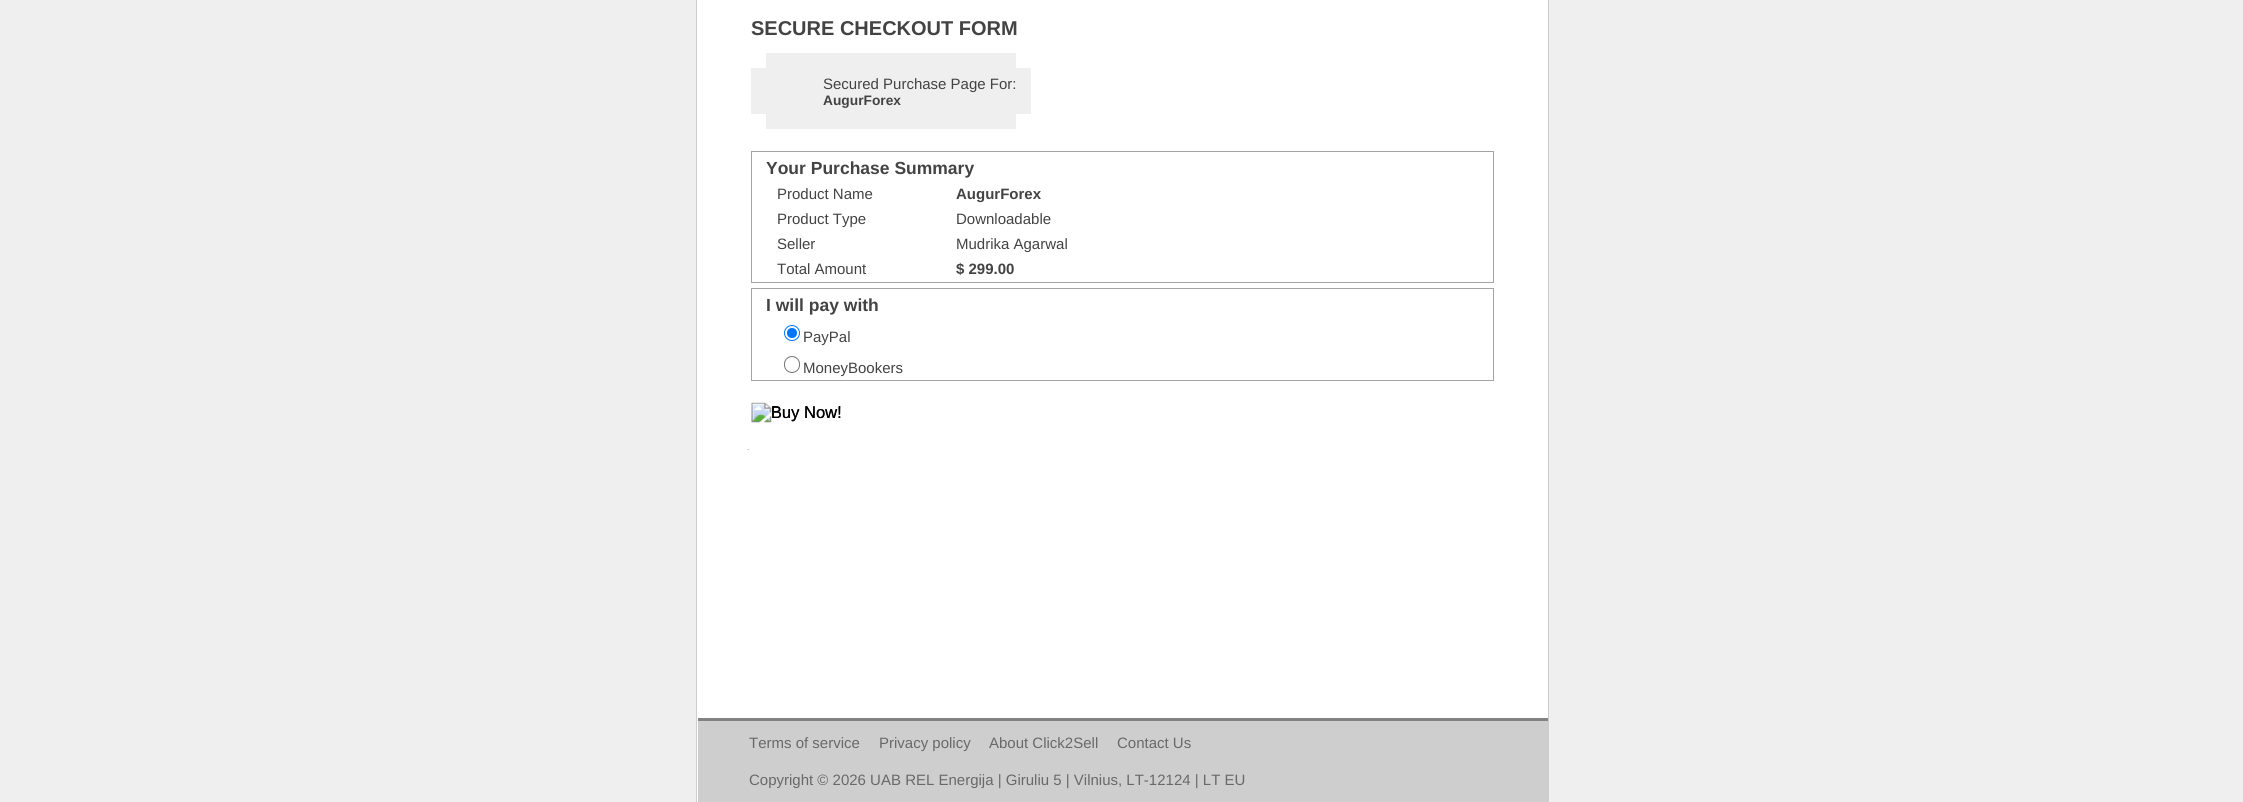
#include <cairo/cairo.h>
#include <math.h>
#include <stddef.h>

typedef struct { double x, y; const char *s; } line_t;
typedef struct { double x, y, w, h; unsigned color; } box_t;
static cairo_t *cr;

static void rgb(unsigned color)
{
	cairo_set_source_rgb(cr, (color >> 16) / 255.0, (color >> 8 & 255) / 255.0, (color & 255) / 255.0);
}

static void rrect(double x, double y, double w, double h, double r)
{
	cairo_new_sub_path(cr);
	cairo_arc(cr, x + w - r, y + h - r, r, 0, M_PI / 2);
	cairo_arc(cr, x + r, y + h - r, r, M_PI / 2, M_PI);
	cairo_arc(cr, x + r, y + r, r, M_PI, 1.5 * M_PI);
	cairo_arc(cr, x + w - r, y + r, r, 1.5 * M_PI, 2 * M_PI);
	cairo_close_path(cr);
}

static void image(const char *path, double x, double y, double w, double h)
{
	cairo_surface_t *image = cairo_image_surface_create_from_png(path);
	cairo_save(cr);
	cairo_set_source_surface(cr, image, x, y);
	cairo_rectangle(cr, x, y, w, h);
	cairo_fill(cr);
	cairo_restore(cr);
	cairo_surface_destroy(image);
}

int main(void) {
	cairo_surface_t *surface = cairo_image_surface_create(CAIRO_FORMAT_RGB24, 2243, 802);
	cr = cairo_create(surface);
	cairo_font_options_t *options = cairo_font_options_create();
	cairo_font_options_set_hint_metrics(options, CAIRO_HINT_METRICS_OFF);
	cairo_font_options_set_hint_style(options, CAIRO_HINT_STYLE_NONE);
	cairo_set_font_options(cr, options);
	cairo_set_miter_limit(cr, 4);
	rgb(0xefefef);
	cairo_paint(cr);
	{
		static const box_t items[] = {
			{697, 0, 851, 802, 0xffffff},
			{1548, 0, 1, 802, 0xcecece},
			{696, 0, 1, 802, 0xcecece},
			{766, 53, 250, 15, 0xefefef},
			{751, 68, 280, 46, 0xefefef},
			{766, 114, 250, 15, 0xefefef},
		};
		for (size_t i = 0; i < sizeof items / sizeof *items; i++) {
			rgb(items[i].color);
			cairo_rectangle(cr, items[i].x, items[i].y, items[i].w, items[i].h);
			cairo_fill(cr);
		}
	}
	cairo_rectangle(cr, 751.5, 151.5, 742, 131);
	rgb(0xa4a4a4);
	cairo_set_line_width(cr, 1);
	cairo_stroke(cr);
	cairo_rectangle(cr, 751.5, 288.5, 742, 92);
	cairo_stroke(cr);
	cairo_arc(cr, 792, 333, 7.5, 0, 2 * M_PI);
	rgb(0x0075ff);
	cairo_stroke(cr);
	cairo_arc(cr, 792, 333, 5, 0, 2 * M_PI);
	cairo_fill(cr);
	rrect(784.5, 356.5, 15, 16, 7.5);
	rgb(0x767676);
	cairo_stroke(cr);
	image("img/1.png", 751, 402, 90, 21);
	image("img/2.png", 747, 449, 2, 1);
	rgb(0xcecece);
	cairo_rectangle(cr, 698, 721, 850, 81);
	cairo_fill(cr);
	rgb(0x828282);
	cairo_rectangle(cr, 698, 718, 850, 3);
	cairo_fill(cr);
	cairo_select_font_face(cr, "Liberation Sans", CAIRO_FONT_SLANT_NORMAL, CAIRO_FONT_WEIGHT_BOLD);
	cairo_set_font_size(cr, 20);
	rgb(0x424342);
	cairo_move_to(cr, 751, 35);
	cairo_show_text(cr, "SECURE CHECKOUT FORM");
	cairo_select_font_face(cr, "Liberation Sans", CAIRO_FONT_SLANT_NORMAL, CAIRO_FONT_WEIGHT_NORMAL);
	cairo_set_font_size(cr, 15);
	cairo_move_to(cr, 823, 89);
	cairo_show_text(cr, "Secured Purchase Page For:");
	cairo_select_font_face(cr, "Liberation Sans", CAIRO_FONT_SLANT_NORMAL, CAIRO_FONT_WEIGHT_BOLD);
	cairo_set_font_size(cr, 13.75);
	cairo_move_to(cr, 823, 105);
	cairo_show_text(cr, "AugurForex");
	cairo_set_font_size(cr, 17.5);
	cairo_move_to(cr, 766, 174);
	cairo_show_text(cr, "Your Purchase Summary");
	cairo_select_font_face(cr, "Liberation Sans", CAIRO_FONT_SLANT_NORMAL, CAIRO_FONT_WEIGHT_NORMAL);
	cairo_set_font_size(cr, 15);
	cairo_move_to(cr, 777, 199);
	cairo_show_text(cr, "Product Name");
	cairo_select_font_face(cr, "Liberation Sans", CAIRO_FONT_SLANT_NORMAL, CAIRO_FONT_WEIGHT_BOLD);
	cairo_move_to(cr, 956, 199);
	cairo_show_text(cr, "AugurForex");
	cairo_select_font_face(cr, "Liberation Sans", CAIRO_FONT_SLANT_NORMAL, CAIRO_FONT_WEIGHT_NORMAL);
	{
		static const line_t items[] = {
			{777, 224, "Product Type"},
			{956, 224, "Downloadable"},
			{777, 249, "Seller"},
			{956, 249, "Mudrika Agarwal"},
			{777, 274, "Total Amount"},
		};
		for (size_t i = 0; i < sizeof items / sizeof *items; i++) {
			cairo_move_to(cr, items[i].x, items[i].y);
			cairo_show_text(cr, items[i].s);
		}
	}
	cairo_select_font_face(cr, "Liberation Sans", CAIRO_FONT_SLANT_NORMAL, CAIRO_FONT_WEIGHT_BOLD);
	cairo_move_to(cr, 956, 274);
	cairo_show_text(cr, "$ 299.00");
	cairo_set_font_size(cr, 17.5);
	cairo_move_to(cr, 766, 311);
	cairo_show_text(cr, "I will pay with");
	cairo_select_font_face(cr, "Liberation Sans", CAIRO_FONT_SLANT_NORMAL, CAIRO_FONT_WEIGHT_NORMAL);
	cairo_set_font_size(cr, 15);
	cairo_move_to(cr, 803, 342);
	cairo_show_text(cr, "PayPal");
	cairo_move_to(cr, 803, 373);
	cairo_show_text(cr, "MoneyBookers");
	cairo_set_font_size(cr, 16.5);
	rgb(0x000000);
	cairo_move_to(cr, 771, 418);
	cairo_show_text(cr, "Buy Now!");
	cairo_set_font_size(cr, 15);
	rgb(0x696969);
	{
		static const line_t items[] = {
			{749, 748, "Terms of service"},
			{879, 748, "Privacy policy"},
			{989, 748, "About Click2Sell"},
			{1117, 748, "Contact Us"},
			{749, 785, "Copyright © 2026 UAB REL Energija | Giruliu 5 | Vilnius, LT-12124 | LT EU"},
		};
		for (size_t i = 0; i < sizeof items / sizeof *items; i++) {
			cairo_move_to(cr, items[i].x, items[i].y);
			cairo_show_text(cr, items[i].s);
		}
	}
	cairo_surface_write_to_png(surface, "page.png");
	cairo_font_options_destroy(options);
	cairo_destroy(cr);
	cairo_surface_destroy(surface);
	return 0;
}
